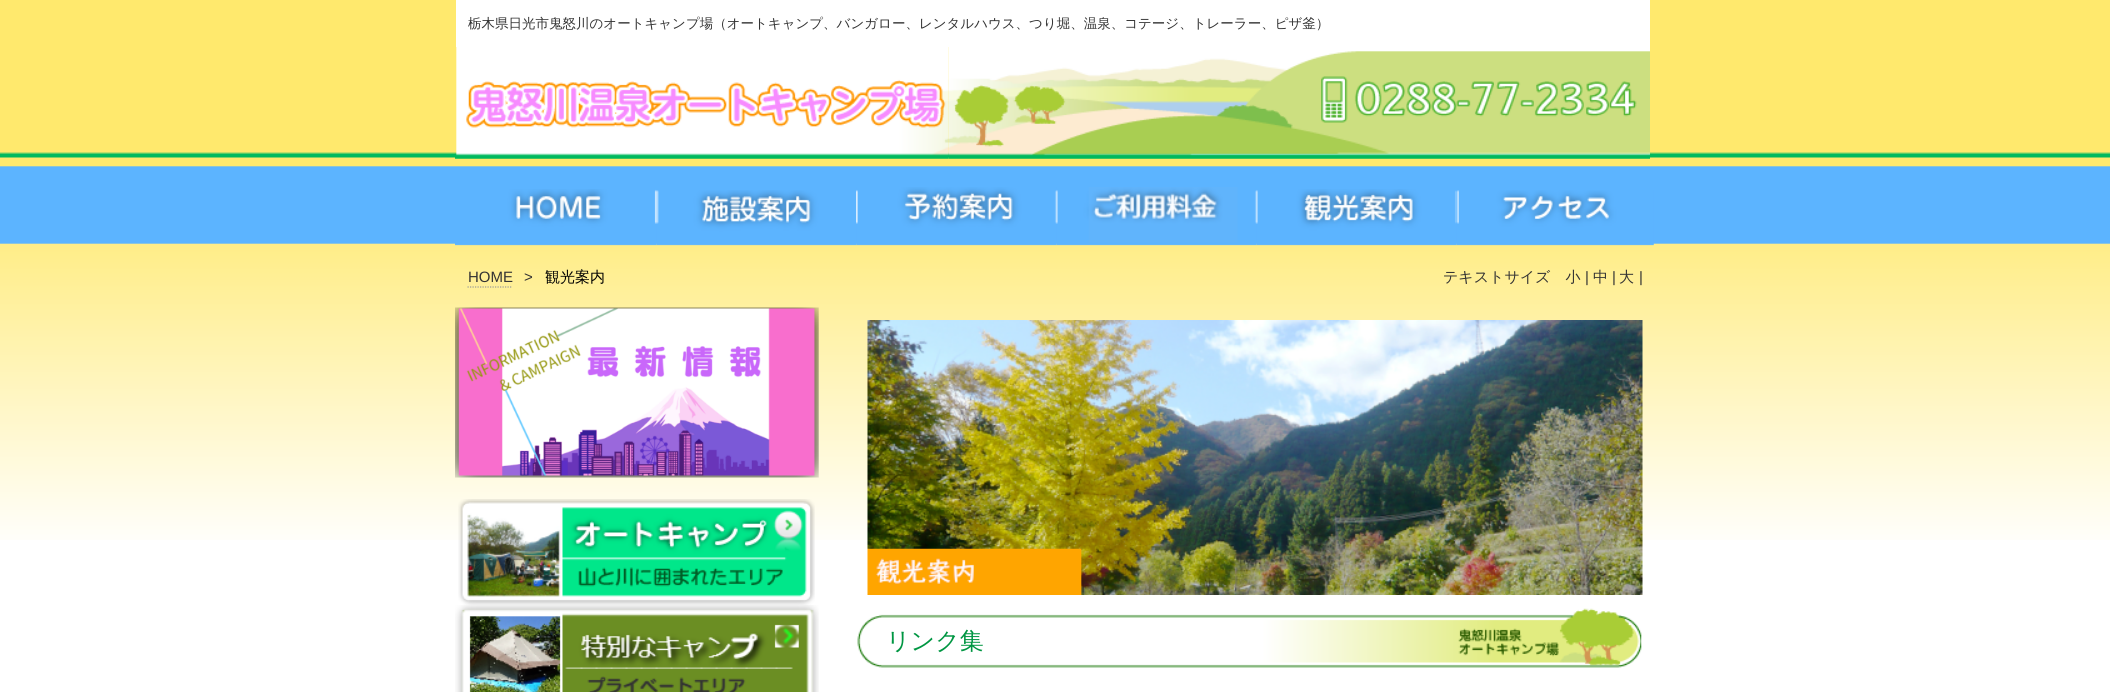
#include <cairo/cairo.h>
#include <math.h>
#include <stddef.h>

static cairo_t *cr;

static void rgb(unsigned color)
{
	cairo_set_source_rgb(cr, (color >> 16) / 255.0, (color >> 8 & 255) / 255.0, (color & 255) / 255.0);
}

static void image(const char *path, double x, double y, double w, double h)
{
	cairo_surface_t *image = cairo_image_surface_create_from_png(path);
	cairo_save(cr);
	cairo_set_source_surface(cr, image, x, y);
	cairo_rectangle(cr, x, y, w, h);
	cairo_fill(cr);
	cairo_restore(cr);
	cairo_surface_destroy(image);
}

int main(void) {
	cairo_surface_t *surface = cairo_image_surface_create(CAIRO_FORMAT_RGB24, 2110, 692);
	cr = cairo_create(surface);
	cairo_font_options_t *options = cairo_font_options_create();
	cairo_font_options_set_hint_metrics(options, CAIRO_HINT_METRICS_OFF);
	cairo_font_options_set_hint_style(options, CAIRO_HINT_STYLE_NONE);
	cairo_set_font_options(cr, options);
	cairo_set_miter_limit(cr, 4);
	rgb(0xffffff);
	cairo_paint(cr);
	image("img/1.png", 0, 0, 2110, 540);
	rgb(0xffffff);
	cairo_rectangle(cr, 456, 0, 1194, 47);
	cairo_fill(cr);
	image("img/2.png", 455, 47, 494, 112);
	image("img/3.png", 948, 47, 702, 112);
	image("img/4.png", 455, 189, 202, 57);
	image("img/5.png", 656, 190, 201, 56);
	image("img/6.png", 856, 187, 201, 59);
	image("img/7.png", 1056, 187, 201, 59);
	image("img/8.png", 1256, 189, 201, 57);
	image("img/9.png", 1456, 190, 198, 56);
	cairo_new_path(cr);
	cairo_move_to(cr, 467.5, 287);
	cairo_line_to(cr, 512.5, 287);
	rgb(0x999999);
	cairo_set_line_width(cr, 1.2);
	cairo_set_dash(cr, (double[]){1.25, 1.25}, 2, 0);
	cairo_stroke(cr);
	image("img/10.png", 455, 307, 364, 171);
	image("img/11.png", 458, 499, 357, 106);
	image("img/12.png", 455, 605, 364, 87);
	image("img/13.png", 867, 320, 776, 275);
	image("img/14.png", 857, 608, 785, 60);
	cairo_select_font_face(cr, "WenQuanYi Zen Hei Medium", CAIRO_FONT_SLANT_NORMAL, CAIRO_FONT_WEIGHT_NORMAL);
	cairo_set_font_size(cr, 13.5);
	rgb(0x333333);
	cairo_move_to(cr, 468, 28);
	cairo_show_text(cr, "栃木県日光市鬼怒川のオートキャンプ場（オートキャンプ、バンガロー、レンタルハウス、つり堀、温泉、コテージ、トレーラー、ピザ釜）");
	cairo_select_font_face(cr, "Liberation Sans", CAIRO_FONT_SLANT_NORMAL, CAIRO_FONT_WEIGHT_NORMAL);
	cairo_set_font_size(cr, 15);
	cairo_move_to(cr, 468, 282);
	cairo_show_text(cr, "HOME");
	cairo_move_to(cr, 524, 282);
	cairo_show_text(cr, ">");
	cairo_select_font_face(cr, "WenQuanYi Zen Hei Medium", CAIRO_FONT_SLANT_NORMAL, CAIRO_FONT_WEIGHT_NORMAL);
	rgb(0x000000);
	cairo_move_to(cr, 545, 282);
	cairo_show_text(cr, "観光案内");
	rgb(0x333333);
	cairo_move_to(cr, 1443, 282);
	cairo_show_text(cr, "テキストサイズ　小");
	cairo_select_font_face(cr, "Liberation Sans", CAIRO_FONT_SLANT_NORMAL, CAIRO_FONT_WEIGHT_NORMAL);
	cairo_move_to(cr, 1585, 282);
	cairo_show_text(cr, "|");
	cairo_select_font_face(cr, "WenQuanYi Zen Hei Medium", CAIRO_FONT_SLANT_NORMAL, CAIRO_FONT_WEIGHT_NORMAL);
	cairo_move_to(cr, 1593, 282);
	cairo_show_text(cr, "中");
	cairo_select_font_face(cr, "Liberation Sans", CAIRO_FONT_SLANT_NORMAL, CAIRO_FONT_WEIGHT_NORMAL);
	cairo_move_to(cr, 1612, 282);
	cairo_show_text(cr, "|");
	cairo_select_font_face(cr, "WenQuanYi Zen Hei Medium", CAIRO_FONT_SLANT_NORMAL, CAIRO_FONT_WEIGHT_NORMAL);
	cairo_move_to(cr, 1619, 282);
	cairo_show_text(cr, "大");
	cairo_select_font_face(cr, "Liberation Sans", CAIRO_FONT_SLANT_NORMAL, CAIRO_FONT_WEIGHT_NORMAL);
	cairo_move_to(cr, 1639, 282);
	cairo_show_text(cr, "|");
	cairo_select_font_face(cr, "WenQuanYi Zen Hei Medium", CAIRO_FONT_SLANT_NORMAL, CAIRO_FONT_WEIGHT_NORMAL);
	cairo_set_font_size(cr, 24);
	rgb(0x009642);
	cairo_move_to(cr, 886, 649);
	cairo_show_text(cr, "リンク集");
	cairo_surface_write_to_png(surface, "page.png");
	cairo_font_options_destroy(options);
	cairo_destroy(cr);
	cairo_surface_destroy(surface);
	return 0;
}
